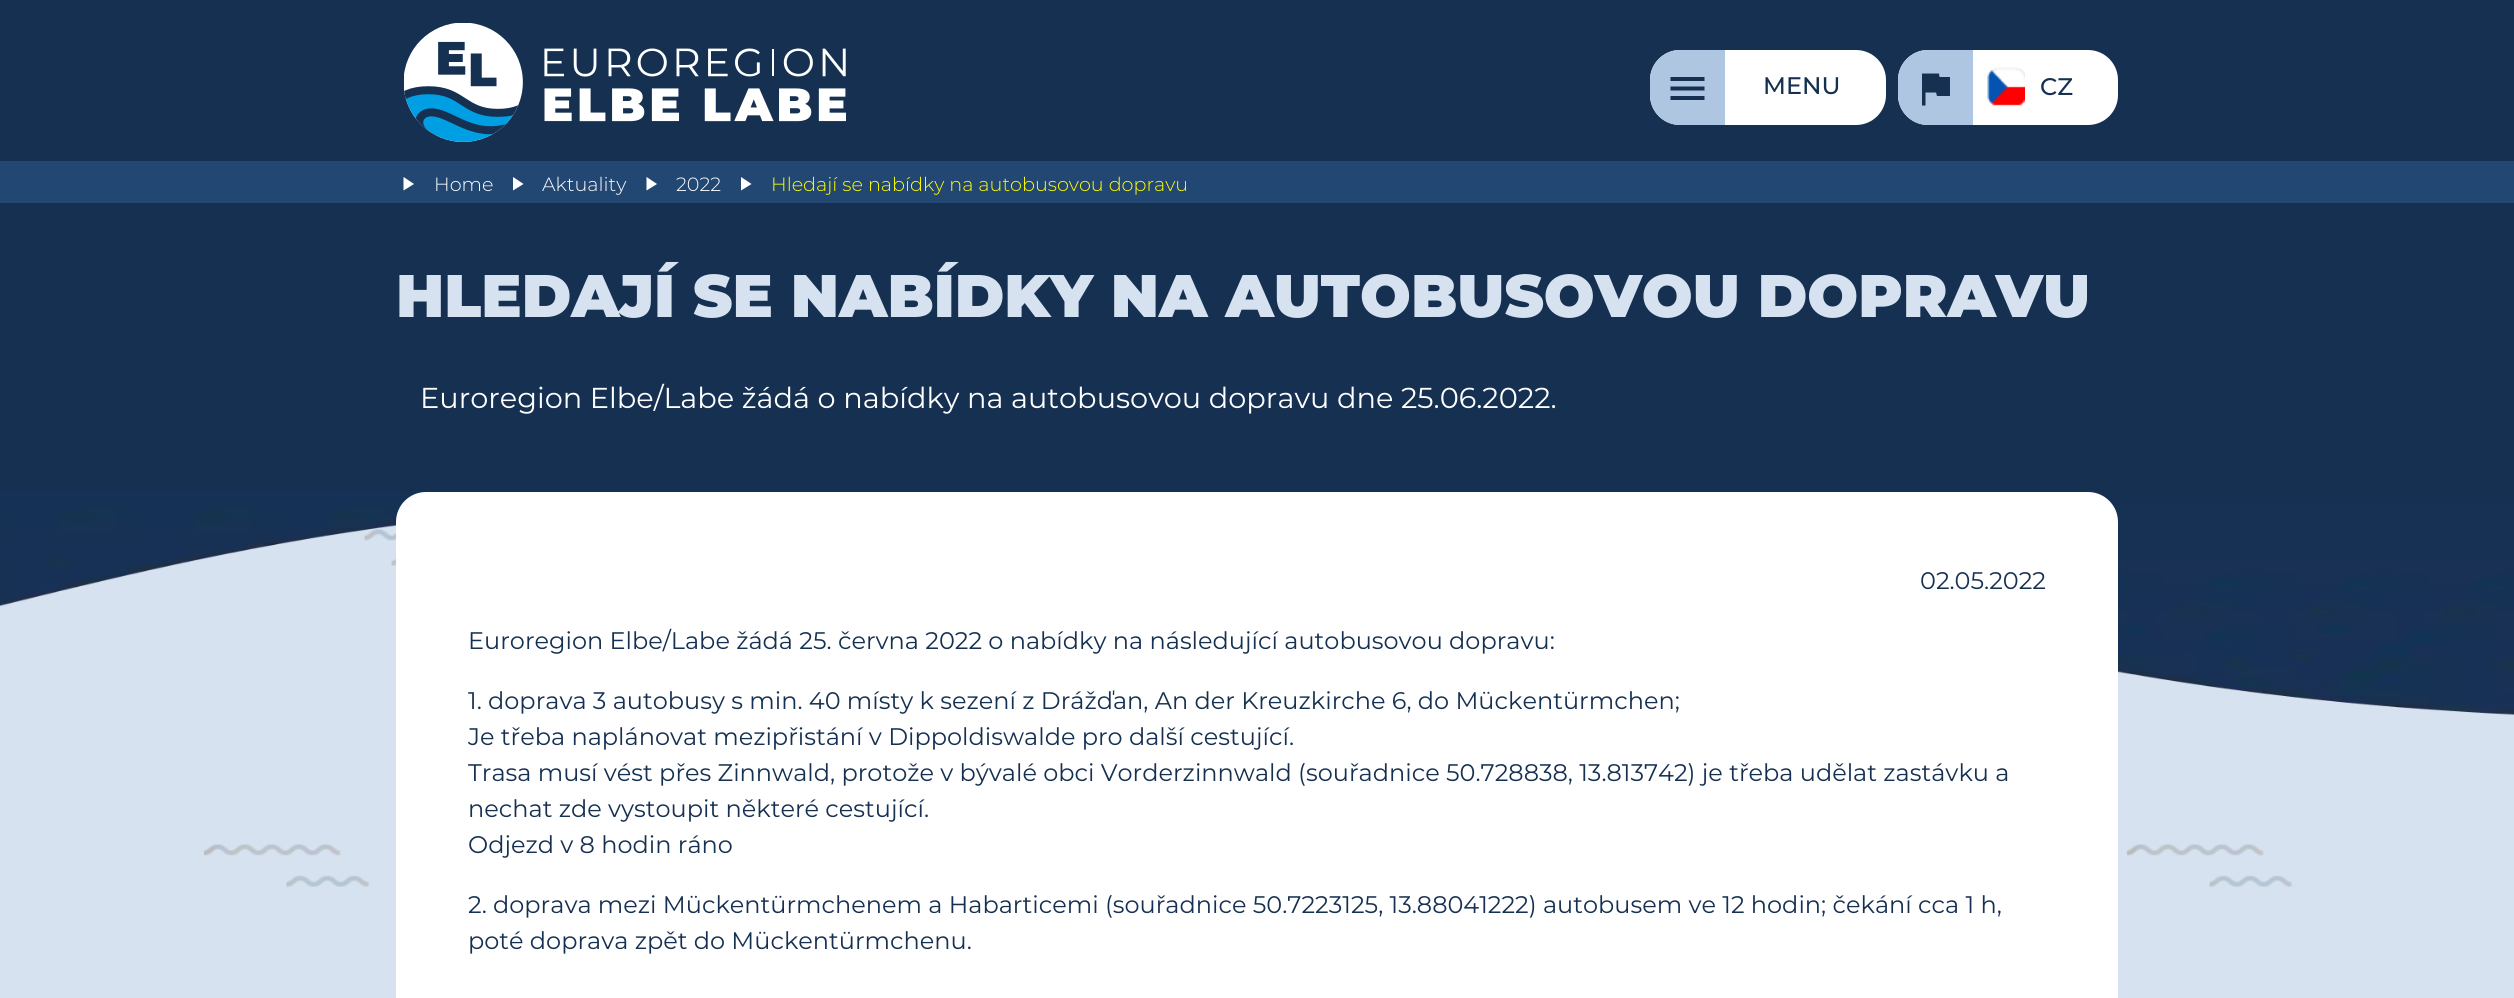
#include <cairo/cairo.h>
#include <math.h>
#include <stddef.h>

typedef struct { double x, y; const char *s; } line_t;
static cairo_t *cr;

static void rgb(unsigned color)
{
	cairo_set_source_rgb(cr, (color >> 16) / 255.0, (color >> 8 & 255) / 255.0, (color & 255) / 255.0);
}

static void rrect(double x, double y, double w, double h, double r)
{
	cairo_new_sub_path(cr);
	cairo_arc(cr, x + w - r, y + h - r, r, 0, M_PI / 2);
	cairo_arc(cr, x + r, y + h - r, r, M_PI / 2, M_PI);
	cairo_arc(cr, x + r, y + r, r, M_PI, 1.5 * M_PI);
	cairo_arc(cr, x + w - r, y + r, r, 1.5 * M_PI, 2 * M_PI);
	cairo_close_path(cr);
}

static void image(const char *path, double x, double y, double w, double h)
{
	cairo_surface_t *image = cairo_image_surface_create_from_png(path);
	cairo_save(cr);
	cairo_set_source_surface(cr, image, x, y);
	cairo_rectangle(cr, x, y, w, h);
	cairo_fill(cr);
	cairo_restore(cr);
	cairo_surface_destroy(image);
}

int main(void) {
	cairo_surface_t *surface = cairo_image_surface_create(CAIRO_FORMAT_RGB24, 2514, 998);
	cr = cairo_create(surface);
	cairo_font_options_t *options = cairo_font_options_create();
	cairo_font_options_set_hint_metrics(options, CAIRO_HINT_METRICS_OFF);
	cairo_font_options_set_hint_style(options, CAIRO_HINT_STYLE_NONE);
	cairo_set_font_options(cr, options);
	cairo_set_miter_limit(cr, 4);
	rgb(0xd6e2f0);
	cairo_paint(cr);
	rgb(0x153051);
	cairo_rectangle(cr, 0, 0, 2514, 161);
	cairo_fill(cr);
	image("img/1.png", 404, 23, 442, 119);
	rgb(0xffffff);
	rrect(1650, 50, 236, 75, 30);
	cairo_fill(cr);
	rgb(0xaec6e2);
	cairo_new_path(cr);
	cairo_move_to(cr, 1680, 50);
	cairo_line_to(cr, 1725, 50);
	cairo_line_to(cr, 1725, 125);
	cairo_line_to(cr, 1680, 125);
	cairo_curve_to(cr, 1663.5, 125, 1650, 111.5, 1650, 95);
	cairo_line_to(cr, 1650, 80);
	cairo_curve_to(cr, 1650, 63.5, 1663.5, 50, 1680, 50);
	cairo_close_path(cr);
	cairo_fill(cr);
	rgb(0x153051);
	cairo_new_path(cr);
	cairo_move_to(cr, 1670.5, 77);
	cairo_line_to(cr, 1704.5, 77);
	cairo_line_to(cr, 1704.5, 81);
	cairo_line_to(cr, 1670.5, 81);
	cairo_close_path(cr);
	cairo_move_to(cr, 1670.5, 90.5);
	cairo_line_to(cr, 1670.5, 86.5);
	cairo_line_to(cr, 1704.5, 86.5);
	cairo_line_to(cr, 1704.5, 90.5);
	cairo_close_path(cr);
	cairo_move_to(cr, 1670.5, 100);
	cairo_line_to(cr, 1670.5, 96);
	cairo_line_to(cr, 1704.5, 96);
	cairo_line_to(cr, 1704.5, 100);
	cairo_close_path(cr);
	cairo_fill(cr);
	rgb(0xffffff);
	rrect(1898, 50, 220, 75, 30);
	cairo_fill(cr);
	rgb(0xaec6e2);
	cairo_new_path(cr);
	cairo_move_to(cr, 1928, 50);
	cairo_line_to(cr, 1973, 50);
	cairo_line_to(cr, 1973, 125);
	cairo_line_to(cr, 1928, 125);
	cairo_curve_to(cr, 1911.5, 125, 1898, 111.5, 1898, 95);
	cairo_line_to(cr, 1898, 80);
	cairo_curve_to(cr, 1898, 63.5, 1911.5, 50, 1928, 50);
	cairo_close_path(cr);
	cairo_fill(cr);
	rgb(0x153051);
	cairo_new_path(cr);
	cairo_move_to(cr, 1939.5, 77);
	cairo_line_to(cr, 1950, 77);
	cairo_line_to(cr, 1950, 96);
	cairo_line_to(cr, 1937, 96);
	cairo_line_to(cr, 1936, 92.5);
	cairo_line_to(cr, 1925.5, 92.5);
	cairo_line_to(cr, 1925.5, 105.5);
	cairo_line_to(cr, 1922, 105.5);
	cairo_line_to(cr, 1922, 73.5);
	cairo_line_to(cr, 1939, 73.5);
	cairo_close_path(cr);
	cairo_fill(cr);
	image("img/2.png", 1987, 67, 38, 39);
	rgb(0x234773);
	cairo_rectangle(cr, 0, 161, 2514, 42);
	cairo_fill(cr);
	rgb(0xffffff);
	cairo_new_path(cr);
	cairo_move_to(cr, 403.5, 177);
	cairo_line_to(cr, 414, 184);
	cairo_line_to(cr, 403.5, 190.5);
	cairo_close_path(cr);
	cairo_fill(cr);
	cairo_new_path(cr);
	cairo_move_to(cr, 513, 177);
	cairo_line_to(cr, 523.5, 184);
	cairo_line_to(cr, 513, 190.5);
	cairo_close_path(cr);
	cairo_fill(cr);
	cairo_new_path(cr);
	cairo_move_to(cr, 646.5, 177);
	cairo_line_to(cr, 657, 184);
	cairo_line_to(cr, 646.5, 190.5);
	cairo_close_path(cr);
	cairo_fill(cr);
	cairo_new_path(cr);
	cairo_move_to(cr, 741, 177);
	cairo_line_to(cr, 751.5, 184);
	cairo_line_to(cr, 741, 190.5);
	cairo_close_path(cr);
	cairo_fill(cr);
	image("img/3.png", 203, 529, 2090, 358);
	rgb(0x153051);
	cairo_rectangle(cr, 0, 203, 2514, 289);
	cairo_fill(cr);
	image("img/4.png", 0, 492, 2514, 223);
	rgb(0xffffff);
	rrect(396, 492, 1722, 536, 30);
	cairo_fill(cr);
	cairo_select_font_face(cr, "Montserrat Medium", CAIRO_FONT_SLANT_NORMAL, CAIRO_FONT_WEIGHT_NORMAL);
	cairo_set_font_size(cr, 24);
	rgb(0x153051);
	cairo_move_to(cr, 1763, 94);
	cairo_show_text(cr, "MENU");
	cairo_move_to(cr, 2040, 95);
	cairo_show_text(cr, "CZ");
	cairo_select_font_face(cr, "Montserrat Light", CAIRO_FONT_SLANT_NORMAL, CAIRO_FONT_WEIGHT_NORMAL);
	cairo_set_font_size(cr, 19.2);
	rgb(0xffffff);
	{
		static const line_t items[] = {
			{434, 191, "Home"},
			{542, 191, "Aktuality"},
			{676, 191, "2022"},
		};
		for (size_t i = 0; i < sizeof items / sizeof *items; i++) {
			cairo_move_to(cr, items[i].x, items[i].y);
			cairo_show_text(cr, items[i].s);
		}
	}
	rgb(0xffff00);
	cairo_move_to(cr, 771, 191);
	cairo_show_text(cr, "Hledají se nabídky na autobusovou dopravu");
	cairo_select_font_face(cr, "Montserrat Black", CAIRO_FONT_SLANT_NORMAL, CAIRO_FONT_WEIGHT_NORMAL);
	cairo_set_font_size(cr, 60);
	rgb(0xd6e2f0);
	cairo_move_to(cr, 396, 317);
	cairo_show_text(cr, "HLEDAJÍ SE NABÍDKY NA AUTOBUSOVOU DOPRAVU");
	cairo_select_font_face(cr, "Montserrat", CAIRO_FONT_SLANT_NORMAL, CAIRO_FONT_WEIGHT_NORMAL);
	cairo_set_font_size(cr, 28.8);
	rgb(0xffffff);
	cairo_move_to(cr, 420, 408);
	cairo_show_text(cr, "Euroregion Elbe/Labe žádá o nabídky na autobusovou dopravu dne 25.06.2022.");
	cairo_set_font_size(cr, 24);
	rgb(0x153051);
	{
		static const line_t items[] = {
			{1920, 589, "02.05.2022"},
			{468, 649, "Euroregion Elbe/Labe žádá 25. června 2022 o nabídky na následující autobusovou dopravu:"},
			{468, 709, "1. doprava 3 autobusy s min. 40 místy k sezení z Drážďan, An der Kreuzkirche 6, do Mückentürmchen;"},
			{468, 745, "Je třeba naplánovat mezipřistání v Dippoldiswalde pro další cestující."},
			{468, 781, "Trasa musí vést přes Zinnwald, protože v bývalé obci Vorderzinnwald (souřadnice 50.728838, 13.813742) je třeba udělat zastávku a"},
			{468, 817, "nechat zde vystoupit některé cestující."},
			{468, 853, "Odjezd v 8 hodin ráno"},
			{468, 913, "2. doprava mezi Mückentürmchenem a Habarticemi (souřadnice 50.7223125, 13.88041222) autobusem ve 12 hodin; čekání cca 1 h,"},
			{468, 949, "poté doprava zpět do Mückentürmchenu."},
		};
		for (size_t i = 0; i < sizeof items / sizeof *items; i++) {
			cairo_move_to(cr, items[i].x, items[i].y);
			cairo_show_text(cr, items[i].s);
		}
	}
	cairo_surface_write_to_png(surface, "page.png");
	cairo_font_options_destroy(options);
	cairo_destroy(cr);
	cairo_surface_destroy(surface);
	return 0;
}
